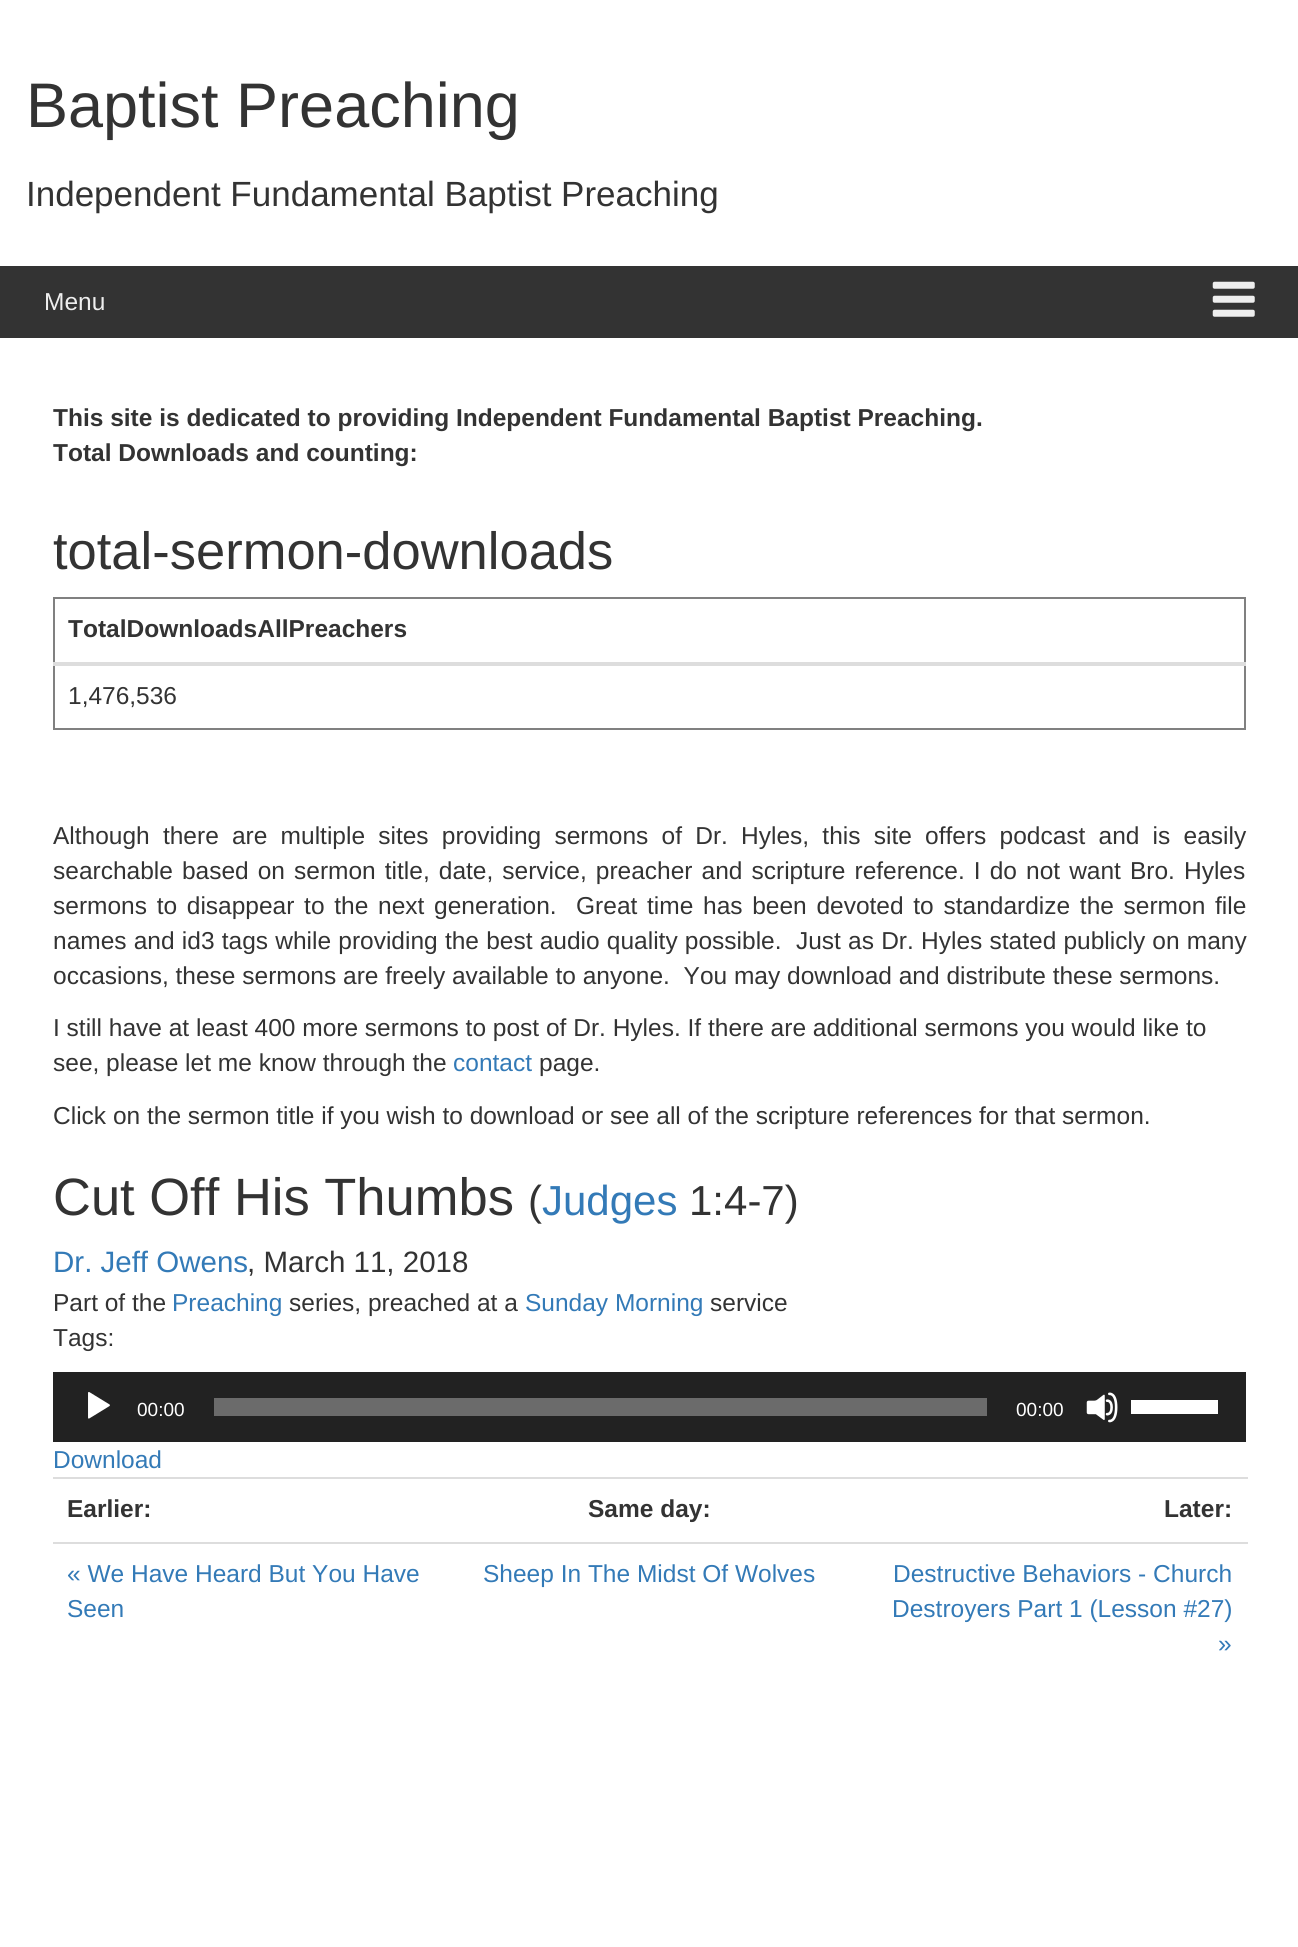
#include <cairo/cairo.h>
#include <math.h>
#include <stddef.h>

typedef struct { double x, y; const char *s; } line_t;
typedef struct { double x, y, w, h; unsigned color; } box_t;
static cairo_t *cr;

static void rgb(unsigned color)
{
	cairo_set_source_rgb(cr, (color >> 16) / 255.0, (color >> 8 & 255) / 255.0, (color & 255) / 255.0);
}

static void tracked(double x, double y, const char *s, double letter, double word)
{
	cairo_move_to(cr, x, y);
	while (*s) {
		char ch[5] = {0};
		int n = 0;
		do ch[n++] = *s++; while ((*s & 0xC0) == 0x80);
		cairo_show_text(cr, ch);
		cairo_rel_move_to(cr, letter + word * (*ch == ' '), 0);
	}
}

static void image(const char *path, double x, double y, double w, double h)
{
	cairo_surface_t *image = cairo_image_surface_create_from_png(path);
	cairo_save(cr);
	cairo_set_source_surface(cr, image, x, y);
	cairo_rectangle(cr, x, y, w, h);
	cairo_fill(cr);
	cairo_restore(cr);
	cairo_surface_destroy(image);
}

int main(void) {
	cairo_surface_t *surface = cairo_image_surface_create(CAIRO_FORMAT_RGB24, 1298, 1947);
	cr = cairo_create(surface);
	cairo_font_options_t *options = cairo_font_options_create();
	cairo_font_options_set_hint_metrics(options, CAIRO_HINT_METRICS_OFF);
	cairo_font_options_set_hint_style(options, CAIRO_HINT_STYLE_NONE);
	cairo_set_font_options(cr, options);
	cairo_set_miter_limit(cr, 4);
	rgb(0xffffff);
	cairo_paint(cr);
	rgb(0x333333);
	cairo_rectangle(cr, 0, 266, 1298, 72);
	cairo_fill(cr);
	image("img/1.png", 1212, 281, 43, 36);
	{
		static const box_t items[] = {
			{53, 597, 1193, 2, 0x808080},
			{1244, 597, 2, 65, 0x808080},
			{53, 728, 1193, 2, 0x808080},
			{53, 597, 2, 65, 0x808080},
			{1244, 663, 2, 67, 0x808080},
			{53, 663, 2, 67, 0x808080},
			{53, 662, 1193, 4, 0xdddddd},
			{53, 1372, 1193, 70, 0x222222},
		};
		for (size_t i = 0; i < sizeof items / sizeof *items; i++) {
			rgb(items[i].color);
			cairo_rectangle(cr, items[i].x, items[i].y, items[i].w, items[i].h);
			cairo_fill(cr);
		}
	}
	image("img/2.png", 88, 1392, 22, 27);
	rgb(0x6b6b6b);
	cairo_rectangle(cr, 214, 1398, 773, 18);
	cairo_fill(cr);
	image("img/3.png", 1086, 1392, 32, 31);
	{
		static const box_t items[] = {
			{1131, 1400, 87, 14, 0xffffff},
			{53, 1477, 1195, 2, 0xdddddd},
			{53, 1542, 1195, 2, 0xdddddd},
		};
		for (size_t i = 0; i < sizeof items / sizeof *items; i++) {
			rgb(items[i].color);
			cairo_rectangle(cr, items[i].x, items[i].y, items[i].w, items[i].h);
			cairo_fill(cr);
		}
	}
	cairo_select_font_face(cr, "Liberation Sans", CAIRO_FONT_SLANT_NORMAL, CAIRO_FONT_WEIGHT_NORMAL);
	cairo_set_font_size(cr, 63);
	rgb(0x333333);
	cairo_move_to(cr, 26, 127);
	cairo_show_text(cr, "Baptist Preaching");
	cairo_set_font_size(cr, 35);
	cairo_move_to(cr, 26, 206);
	cairo_show_text(cr, "Independent Fundamental Baptist Preaching");
	cairo_set_font_size(cr, 24.5);
	rgb(0xeeeeee);
	cairo_move_to(cr, 44, 310);
	cairo_show_text(cr, "Menu");
	cairo_select_font_face(cr, "Liberation Sans", CAIRO_FONT_SLANT_NORMAL, CAIRO_FONT_WEIGHT_BOLD);
	rgb(0x333333);
	cairo_move_to(cr, 53, 426);
	cairo_show_text(cr, "This site is dedicated to providing Independent Fundamental Baptist Preaching.");
	cairo_move_to(cr, 53, 461);
	cairo_show_text(cr, "Total Downloads and counting:");
	cairo_select_font_face(cr, "Liberation Sans", CAIRO_FONT_SLANT_NORMAL, CAIRO_FONT_WEIGHT_NORMAL);
	cairo_set_font_size(cr, 52.5);
	cairo_move_to(cr, 53, 569);
	cairo_show_text(cr, "total-sermon-downloads");
	cairo_select_font_face(cr, "Liberation Sans", CAIRO_FONT_SLANT_NORMAL, CAIRO_FONT_WEIGHT_BOLD);
	cairo_set_font_size(cr, 24.5);
	cairo_move_to(cr, 68, 637);
	cairo_show_text(cr, "TotalDownloadsAllPreachers");
	cairo_select_font_face(cr, "Liberation Sans", CAIRO_FONT_SLANT_NORMAL, CAIRO_FONT_WEIGHT_NORMAL);
	cairo_move_to(cr, 68, 704);
	cairo_show_text(cr, "1,476,536");
	tracked(53, 844, "Although there are multiple sites providing sermons of Dr. Hyles, this site offers podcast and is easily", 0, 6.4);
	tracked(53, 879, "searchable based on sermon title, date, service, preacher and scripture reference. I do not want Bro. Hyles", 0, 2.25);
	tracked(53, 914, "sermons to disappear to the next generation.  Great time has been devoted to standardize the sermon file", 0, 2.9);
	tracked(53, 949, "names and id3 tags while providing the best audio quality possible.  Just as Dr. Hyles stated publicly on many", 0, 0.4);
	{
		static const line_t items[] = {
			{53, 984, "occasions, these sermons are freely available to anyone.  You may download and distribute these sermons."},
			{53, 1036, "I still have at least 400 more sermons to post of Dr. Hyles. If there are additional sermons you would like to"},
			{53, 1071, "see, please let me know through the"},
		};
		for (size_t i = 0; i < sizeof items / sizeof *items; i++) {
			cairo_move_to(cr, items[i].x, items[i].y);
			cairo_show_text(cr, items[i].s);
		}
	}
	rgb(0x337ab7);
	cairo_move_to(cr, 453, 1071);
	cairo_show_text(cr, "contact");
	rgb(0x333333);
	cairo_move_to(cr, 539, 1071);
	cairo_show_text(cr, "page.");
	cairo_move_to(cr, 53, 1124);
	cairo_show_text(cr, "Click on the sermon title if you wish to download or see all of the scripture references for that sermon.");
	cairo_set_font_size(cr, 52.5);
	cairo_move_to(cr, 53, 1215);
	cairo_show_text(cr, "Cut Off His Thumbs");
	cairo_set_font_size(cr, 42);
	cairo_move_to(cr, 528, 1215);
	cairo_show_text(cr, "(");
	rgb(0x337ab7);
	cairo_move_to(cr, 542, 1215);
	cairo_show_text(cr, "Judges");
	rgb(0x333333);
	cairo_move_to(cr, 689, 1215);
	cairo_show_text(cr, "1:4-7)");
	cairo_set_font_size(cr, 29.5);
	rgb(0x337ab7);
	cairo_move_to(cr, 53, 1272);
	cairo_show_text(cr, "Dr. Jeff Owens");
	rgb(0x333333);
	cairo_move_to(cr, 247, 1272);
	cairo_show_text(cr, ", March 11, 2018");
	cairo_set_font_size(cr, 24.5);
	cairo_move_to(cr, 53, 1311);
	cairo_show_text(cr, "Part of the");
	rgb(0x337ab7);
	cairo_move_to(cr, 172, 1311);
	cairo_show_text(cr, "Preaching");
	rgb(0x333333);
	cairo_move_to(cr, 289, 1311);
	cairo_show_text(cr, "series, preached at a");
	rgb(0x337ab7);
	cairo_move_to(cr, 525, 1311);
	cairo_show_text(cr, "Sunday Morning");
	rgb(0x333333);
	cairo_move_to(cr, 710, 1311);
	cairo_show_text(cr, "service");
	cairo_move_to(cr, 53, 1346);
	cairo_show_text(cr, "Tags:");
	cairo_set_font_size(cr, 19);
	rgb(0xffffff);
	cairo_move_to(cr, 137, 1416);
	cairo_show_text(cr, "00:00");
	cairo_move_to(cr, 1016, 1416);
	cairo_show_text(cr, "00:00");
	cairo_set_font_size(cr, 24.5);
	rgb(0x337ab7);
	cairo_move_to(cr, 53, 1468);
	cairo_show_text(cr, "Download");
	cairo_select_font_face(cr, "Liberation Sans", CAIRO_FONT_SLANT_NORMAL, CAIRO_FONT_WEIGHT_BOLD);
	rgb(0x333333);
	{
		static const line_t items[] = {
			{67, 1517, "Earlier:"},
			{588, 1517, "Same day:"},
			{1164, 1517, "Later:"},
		};
		for (size_t i = 0; i < sizeof items / sizeof *items; i++) {
			cairo_move_to(cr, items[i].x, items[i].y);
			cairo_show_text(cr, items[i].s);
		}
	}
	cairo_select_font_face(cr, "Liberation Sans", CAIRO_FONT_SLANT_NORMAL, CAIRO_FONT_WEIGHT_NORMAL);
	rgb(0x337ab7);
	{
		static const line_t items[] = {
			{67, 1582, "« We Have Heard But You Have"},
			{67, 1617, "Seen"},
			{483, 1582, "Sheep In The Midst Of Wolves"},
			{893, 1582, "Destructive Behaviors - Church"},
			{892, 1617, "Destroyers Part 1 (Lesson #27)"},
			{1218, 1652, "»"},
		};
		for (size_t i = 0; i < sizeof items / sizeof *items; i++) {
			cairo_move_to(cr, items[i].x, items[i].y);
			cairo_show_text(cr, items[i].s);
		}
	}
	cairo_surface_write_to_png(surface, "page.png");
	cairo_font_options_destroy(options);
	cairo_destroy(cr);
	cairo_surface_destroy(surface);
	return 0;
}
